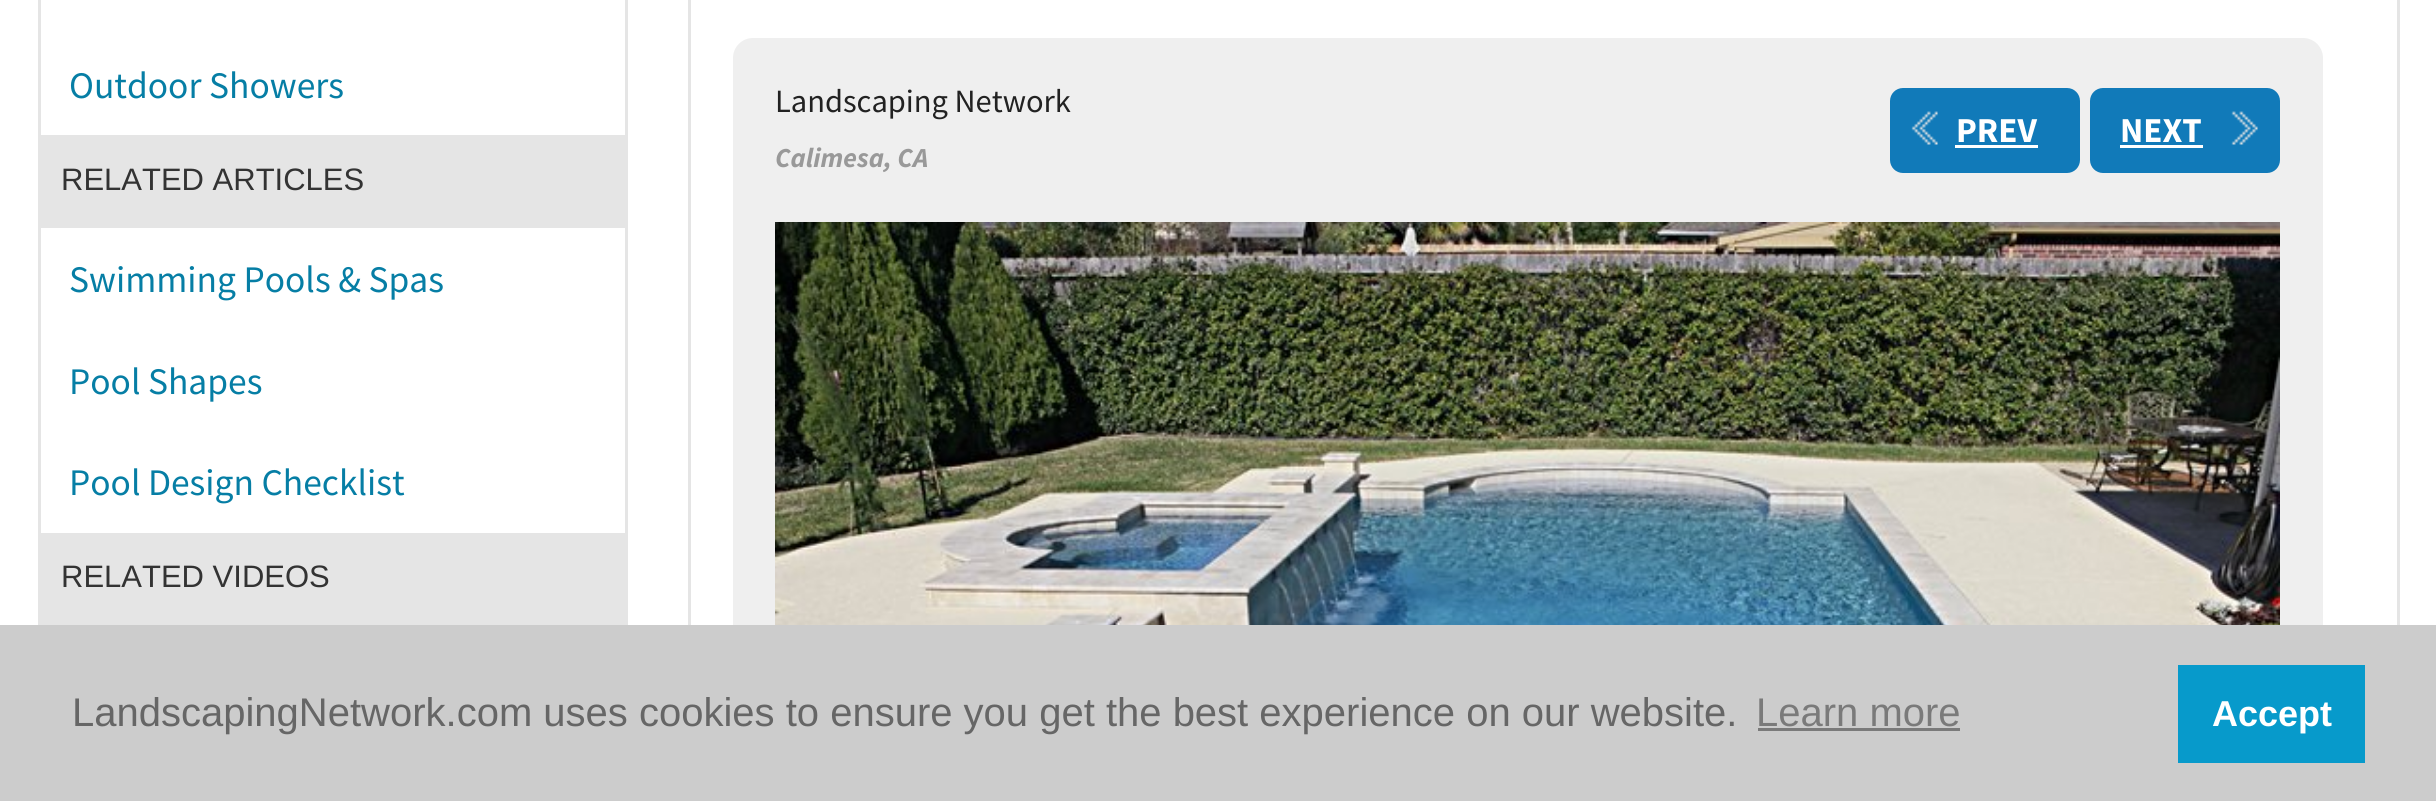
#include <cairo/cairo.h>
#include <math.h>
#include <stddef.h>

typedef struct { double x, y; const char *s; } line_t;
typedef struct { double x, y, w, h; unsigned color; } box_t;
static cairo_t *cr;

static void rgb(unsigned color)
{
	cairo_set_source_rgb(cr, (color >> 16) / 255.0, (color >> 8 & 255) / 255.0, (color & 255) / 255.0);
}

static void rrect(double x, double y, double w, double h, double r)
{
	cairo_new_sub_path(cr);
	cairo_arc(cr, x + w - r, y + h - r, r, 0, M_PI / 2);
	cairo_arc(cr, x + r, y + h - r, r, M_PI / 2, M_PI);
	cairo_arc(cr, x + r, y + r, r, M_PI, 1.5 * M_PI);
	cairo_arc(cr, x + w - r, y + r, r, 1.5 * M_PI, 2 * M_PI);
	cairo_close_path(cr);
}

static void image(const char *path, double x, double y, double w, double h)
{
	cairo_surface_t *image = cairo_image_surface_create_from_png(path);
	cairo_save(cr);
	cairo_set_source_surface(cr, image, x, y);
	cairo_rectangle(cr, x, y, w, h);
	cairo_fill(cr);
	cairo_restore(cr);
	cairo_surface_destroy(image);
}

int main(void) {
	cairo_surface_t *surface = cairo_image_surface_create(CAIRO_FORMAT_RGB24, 2436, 801);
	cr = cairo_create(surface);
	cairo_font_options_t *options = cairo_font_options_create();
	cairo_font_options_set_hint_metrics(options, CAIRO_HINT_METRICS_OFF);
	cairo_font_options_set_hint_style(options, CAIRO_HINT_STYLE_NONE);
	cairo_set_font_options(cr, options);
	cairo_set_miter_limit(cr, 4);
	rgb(0xffffff);
	cairo_paint(cr);
	{
		static const box_t items[] = {
			{625, 0, 3, 135, 0xe5e5e5},
			{38, 0, 3, 135, 0xe5e5e5},
			{38, 135, 590, 93, 0xe5e5e5},
			{625, 228, 3, 305, 0xe5e5e5},
			{38, 228, 3, 305, 0xe5e5e5},
			{38, 533, 590, 92, 0xe5e5e5},
		};
		for (size_t i = 0; i < sizeof items / sizeof *items; i++) {
			rgb(items[i].color);
			cairo_rectangle(cr, items[i].x, items[i].y, items[i].w, items[i].h);
			cairo_fill(cr);
		}
	}
	cairo_rectangle(cr, 689.5, -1.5, 1709, 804);
	cairo_set_line_width(cr, 3);
	cairo_stroke(cr);
	rgb(0xefefef);
	rrect(733, 38, 1590, 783, 20);
	cairo_fill(cr);
	rgb(0x117ab9);
	rrect(1890, 88, 190, 85, 13);
	cairo_fill(cr);
	image("img/1.png", 1911, 111, 27, 34);
	rgb(0xffffff);
	cairo_rectangle(cr, 1955, 145, 83, 3);
	cairo_fill(cr);
	rgb(0x117ab9);
	rrect(2090, 88, 190, 85, 13);
	cairo_fill(cr);
	rgb(0xffffff);
	cairo_rectangle(cr, 2120, 145, 83, 3);
	cairo_fill(cr);
	image("img/2.png", 2231, 111, 27, 34);
	image("img/3.png", 775, 222, 1505, 403);
	{
		static const box_t items[] = {
			{0, 625, 2436, 176, 0xcccccc},
			{1758, 728, 202, 3, 0x7a7a7a},
			{2178, 665, 187, 98, 0x079acb},
		};
		for (size_t i = 0; i < sizeof items / sizeof *items; i++) {
			rgb(items[i].color);
			cairo_rectangle(cr, items[i].x, items[i].y, items[i].w, items[i].h);
			cairo_fill(cr);
		}
	}
	cairo_select_font_face(cr, "Source Sans Pro", CAIRO_FONT_SLANT_NORMAL, CAIRO_FONT_WEIGHT_NORMAL);
	cairo_set_font_size(cr, 37.5);
	rgb(0x067ea5);
	cairo_move_to(cr, 69, 98);
	cairo_show_text(cr, "Outdoor Showers");
	cairo_select_font_face(cr, "Liberation Sans", CAIRO_FONT_SLANT_NORMAL, CAIRO_FONT_WEIGHT_NORMAL);
	cairo_set_font_size(cr, 31);
	rgb(0x333333);
	cairo_move_to(cr, 61, 190);
	cairo_show_text(cr, "RELATED ARTICLES");
	cairo_select_font_face(cr, "Source Sans Pro", CAIRO_FONT_SLANT_NORMAL, CAIRO_FONT_WEIGHT_NORMAL);
	cairo_set_font_size(cr, 37.5);
	rgb(0x067ea5);
	{
		static const line_t items[] = {
			{69, 292, "Swimming Pools & Spas"},
			{69, 394, "Pool Shapes"},
			{69, 495, "Pool Design Checklist"},
		};
		for (size_t i = 0; i < sizeof items / sizeof *items; i++) {
			cairo_move_to(cr, items[i].x, items[i].y);
			cairo_show_text(cr, items[i].s);
		}
	}
	cairo_select_font_face(cr, "Liberation Sans", CAIRO_FONT_SLANT_NORMAL, CAIRO_FONT_WEIGHT_NORMAL);
	cairo_set_font_size(cr, 31);
	rgb(0x333333);
	cairo_move_to(cr, 61, 587);
	cairo_show_text(cr, "RELATED VIDEOS");
	cairo_select_font_face(cr, "Source Sans Pro", CAIRO_FONT_SLANT_NORMAL, CAIRO_FONT_WEIGHT_NORMAL);
	cairo_set_font_size(cr, 32.5);
	rgb(0x222222);
	cairo_move_to(cr, 775, 112);
	cairo_show_text(cr, "Landscaping Network");
	cairo_select_font_face(cr, "Source Sans Pro", CAIRO_FONT_SLANT_ITALIC, CAIRO_FONT_WEIGHT_BOLD);
	cairo_set_font_size(cr, 27.5);
	rgb(0x999999);
	cairo_move_to(cr, 775, 167);
	cairo_show_text(cr, "Calimesa, CA");
	cairo_select_font_face(cr, "Source Sans Pro", CAIRO_FONT_SLANT_NORMAL, CAIRO_FONT_WEIGHT_BOLD);
	cairo_set_font_size(cr, 35);
	rgb(0xffffff);
	cairo_move_to(cr, 1956, 142);
	cairo_show_text(cr, "PREV");
	cairo_move_to(cr, 2120, 142);
	cairo_show_text(cr, "NEXT");
	cairo_select_font_face(cr, "Liberation Sans", CAIRO_FONT_SLANT_NORMAL, CAIRO_FONT_WEIGHT_NORMAL);
	cairo_set_font_size(cr, 40);
	rgb(0x666666);
	cairo_move_to(cr, 72, 726);
	cairo_show_text(cr, "LandscapingNetwork.com uses cookies to ensure you get the best experience on our website.");
	rgb(0x7a7a7a);
	cairo_move_to(cr, 1756, 726);
	cairo_show_text(cr, "Learn more");
	cairo_select_font_face(cr, "Liberation Sans", CAIRO_FONT_SLANT_NORMAL, CAIRO_FONT_WEIGHT_BOLD);
	cairo_set_font_size(cr, 36);
	rgb(0xffffff);
	cairo_move_to(cr, 2212, 726);
	cairo_show_text(cr, "Accept");
	cairo_surface_write_to_png(surface, "page.png");
	cairo_font_options_destroy(options);
	cairo_destroy(cr);
	cairo_surface_destroy(surface);
	return 0;
}
